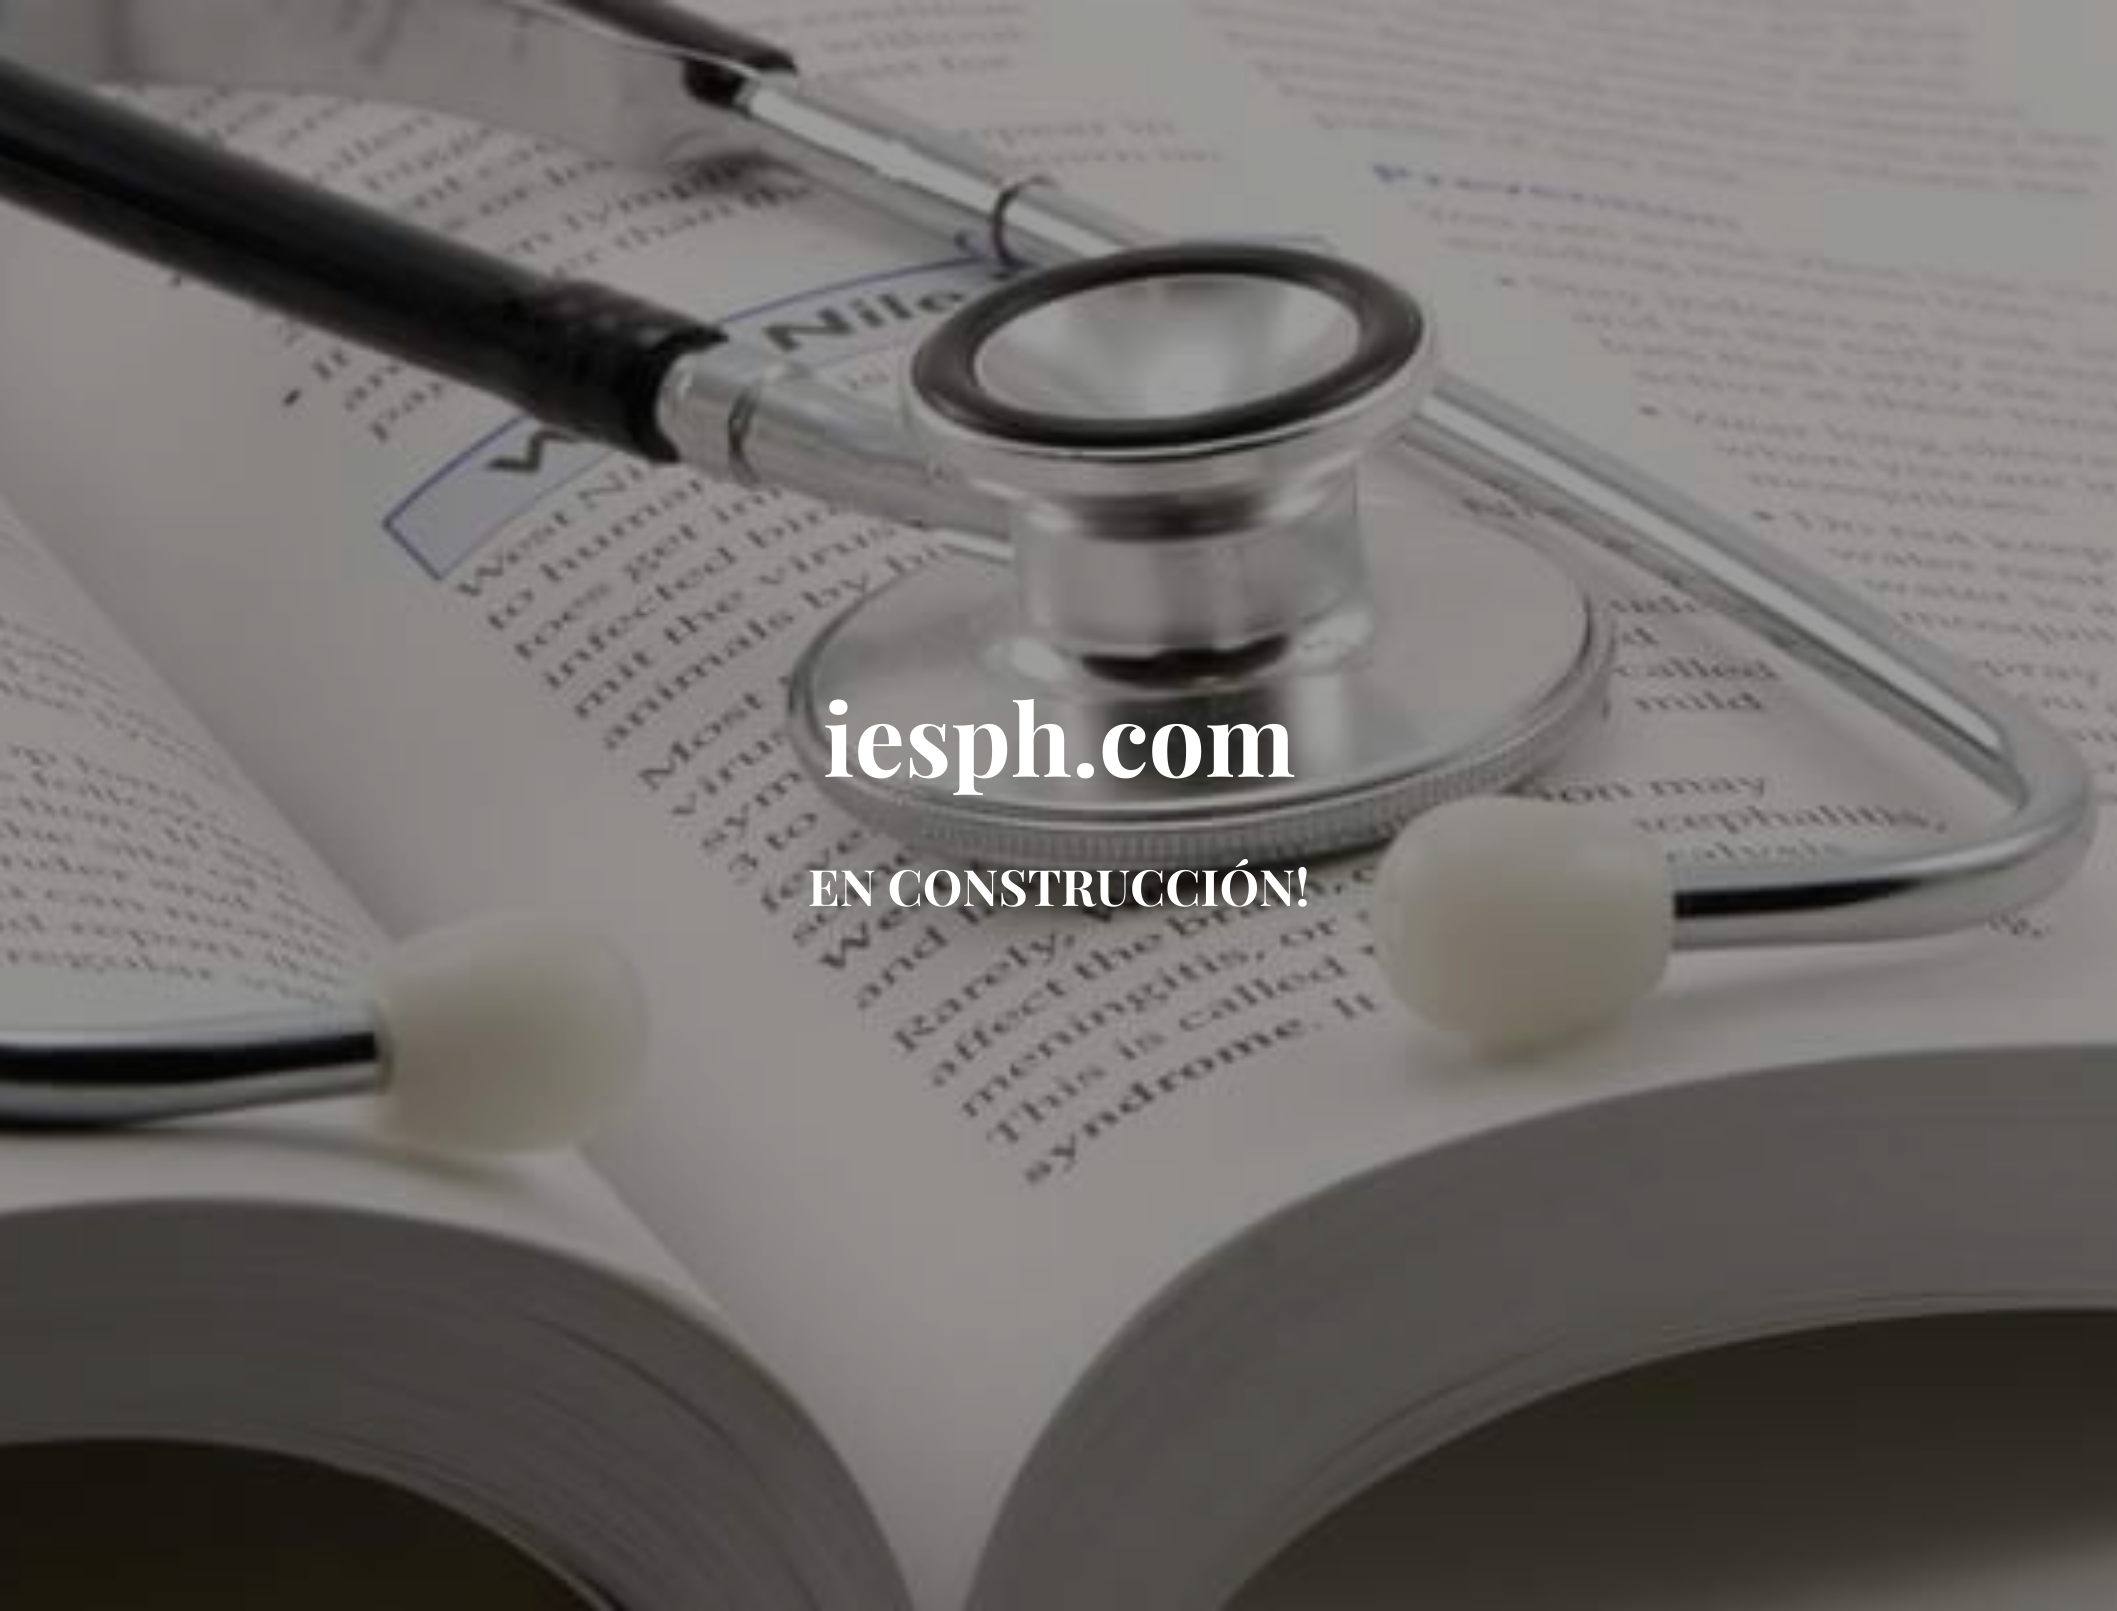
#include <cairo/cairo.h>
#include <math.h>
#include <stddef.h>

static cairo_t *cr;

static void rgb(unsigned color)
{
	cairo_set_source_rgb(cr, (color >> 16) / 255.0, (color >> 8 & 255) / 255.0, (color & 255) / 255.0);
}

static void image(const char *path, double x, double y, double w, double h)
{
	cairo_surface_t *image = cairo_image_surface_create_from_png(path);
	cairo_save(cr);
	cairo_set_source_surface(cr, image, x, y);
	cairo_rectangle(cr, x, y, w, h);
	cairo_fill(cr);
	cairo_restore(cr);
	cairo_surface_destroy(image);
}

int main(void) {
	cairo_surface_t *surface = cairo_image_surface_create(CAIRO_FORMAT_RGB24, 2117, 1611);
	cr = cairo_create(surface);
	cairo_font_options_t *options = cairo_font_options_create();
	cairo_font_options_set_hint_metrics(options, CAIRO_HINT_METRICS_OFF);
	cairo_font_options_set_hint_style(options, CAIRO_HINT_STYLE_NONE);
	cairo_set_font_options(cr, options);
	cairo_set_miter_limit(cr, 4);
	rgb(0xffffff);
	cairo_paint(cr);
	image("img/1.png", 0, 0, 2117, 1611);
	cairo_select_font_face(cr, "Playfair Display", CAIRO_FONT_SLANT_NORMAL, CAIRO_FONT_WEIGHT_BOLD);
	cairo_set_font_size(cr, 100);
	rgb(0xffffff);
	cairo_move_to(cr, 823, 777);
	cairo_show_text(cr, "iesph.com");
	cairo_set_font_size(cr, 50);
	cairo_move_to(cr, 808, 906);
	cairo_show_text(cr, "EN CONSTRUCCIÓN!");
	cairo_surface_write_to_png(surface, "page.png");
	cairo_font_options_destroy(options);
	cairo_destroy(cr);
	cairo_surface_destroy(surface);
	return 0;
}
